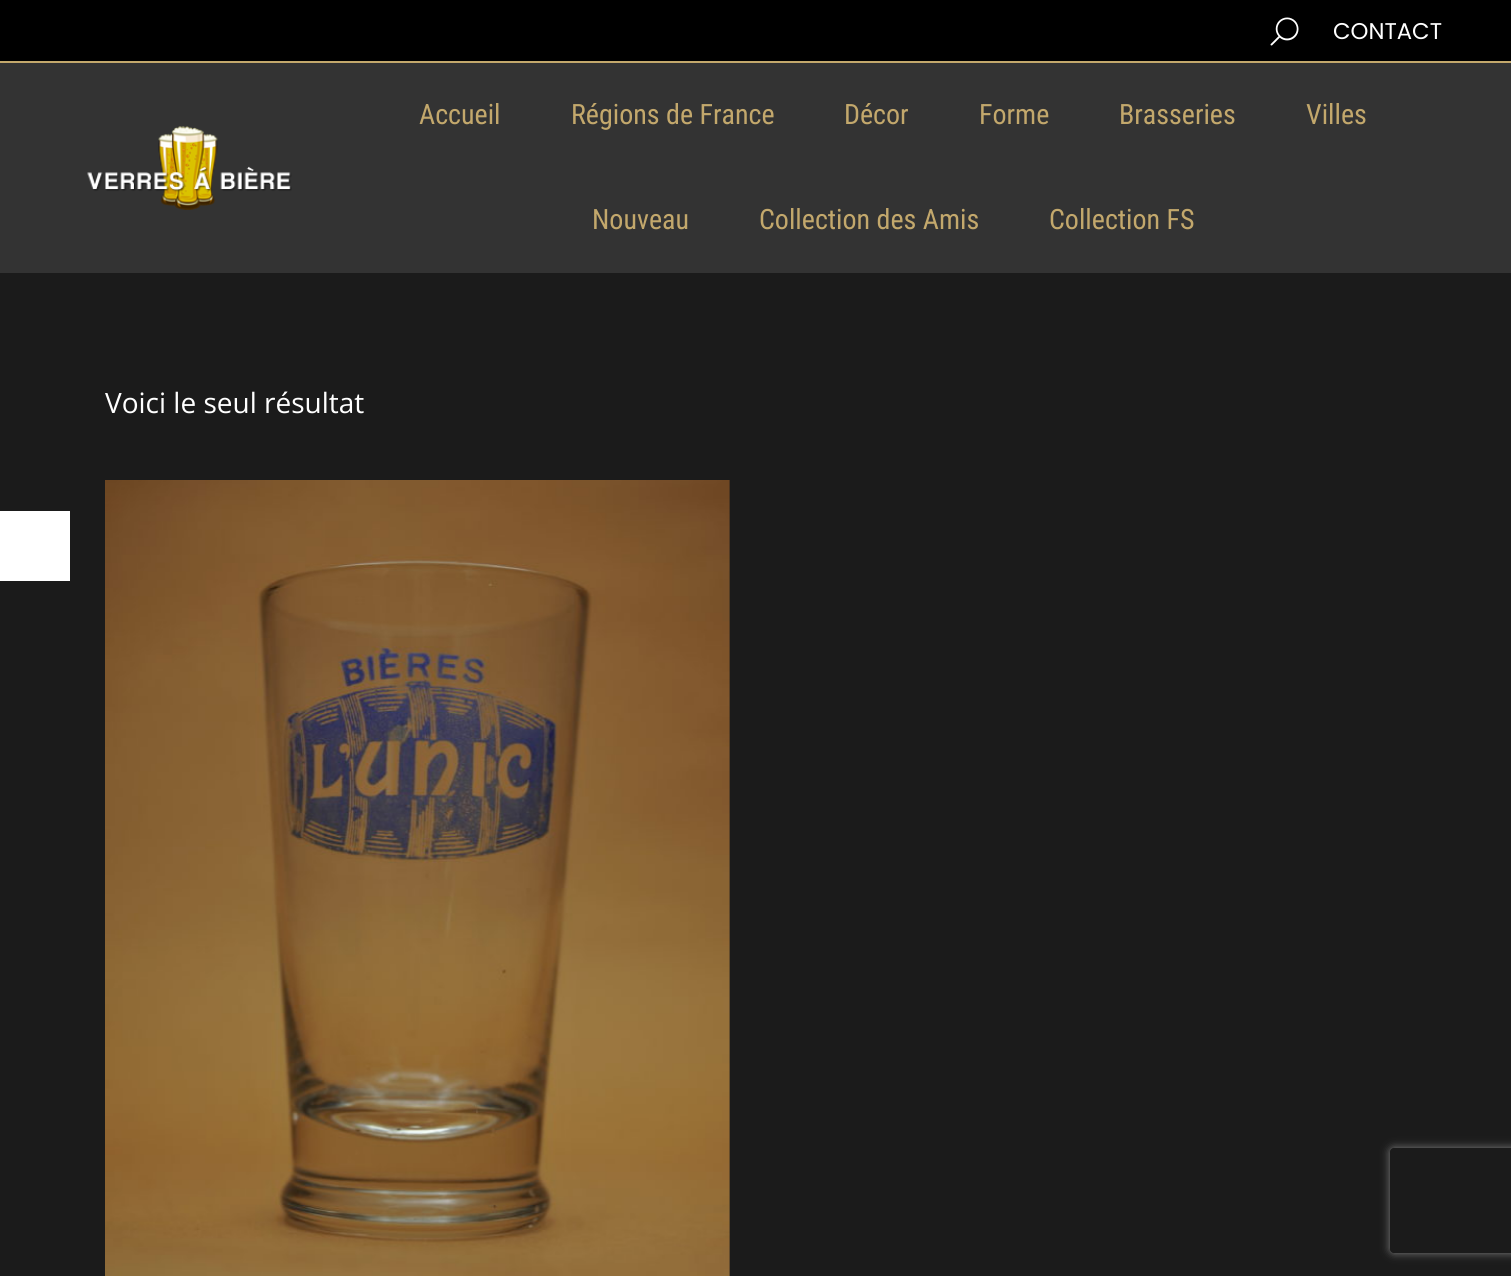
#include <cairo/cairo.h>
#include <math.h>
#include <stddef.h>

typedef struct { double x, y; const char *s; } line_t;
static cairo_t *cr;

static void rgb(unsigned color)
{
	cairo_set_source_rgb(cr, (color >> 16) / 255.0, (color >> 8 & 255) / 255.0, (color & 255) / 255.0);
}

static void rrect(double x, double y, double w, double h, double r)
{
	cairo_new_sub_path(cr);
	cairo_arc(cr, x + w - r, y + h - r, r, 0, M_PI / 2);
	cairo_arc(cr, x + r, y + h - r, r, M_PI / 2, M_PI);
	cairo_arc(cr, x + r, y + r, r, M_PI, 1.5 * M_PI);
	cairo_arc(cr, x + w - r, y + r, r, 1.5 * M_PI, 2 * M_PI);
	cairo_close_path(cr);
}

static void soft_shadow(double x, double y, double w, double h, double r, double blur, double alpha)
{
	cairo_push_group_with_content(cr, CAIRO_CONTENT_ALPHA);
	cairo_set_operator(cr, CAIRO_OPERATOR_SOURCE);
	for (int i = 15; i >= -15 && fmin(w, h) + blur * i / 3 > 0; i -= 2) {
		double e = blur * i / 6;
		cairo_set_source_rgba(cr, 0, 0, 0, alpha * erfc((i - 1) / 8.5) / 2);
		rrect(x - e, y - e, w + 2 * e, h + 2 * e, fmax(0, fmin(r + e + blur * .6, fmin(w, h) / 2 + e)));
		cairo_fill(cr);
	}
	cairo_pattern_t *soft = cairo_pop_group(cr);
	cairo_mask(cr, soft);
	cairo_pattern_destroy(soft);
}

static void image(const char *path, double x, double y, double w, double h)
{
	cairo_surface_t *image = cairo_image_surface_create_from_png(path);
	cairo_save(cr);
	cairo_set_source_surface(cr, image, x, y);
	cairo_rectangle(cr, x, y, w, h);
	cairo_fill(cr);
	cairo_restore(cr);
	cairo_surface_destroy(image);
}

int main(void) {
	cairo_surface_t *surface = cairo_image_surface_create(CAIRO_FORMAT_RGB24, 1511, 1276);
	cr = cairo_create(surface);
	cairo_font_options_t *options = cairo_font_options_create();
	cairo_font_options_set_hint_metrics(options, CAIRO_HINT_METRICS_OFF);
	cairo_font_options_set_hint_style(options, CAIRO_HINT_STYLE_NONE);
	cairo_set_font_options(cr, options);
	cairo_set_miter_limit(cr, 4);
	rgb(0x1b1b1b);
	cairo_paint(cr);
	rgb(0x333333);
	cairo_rectangle(cr, 0, 63, 1511, 210);
	cairo_fill(cr);
	rgb(0x000000);
	cairo_rectangle(cr, 0, 0, 1511, 61);
	cairo_fill(cr);
	image("img/1.png", 1270, 17, 29, 29);
	rgb(0xc3a86c);
	cairo_rectangle(cr, 0, 61, 1511, 2);
	cairo_fill(cr);
	image("img/2.png", 87, 126, 205, 84);
	image("img/3.png", 105, 480, 625, 796);
	rgb(0xffffff);
	cairo_rectangle(cr, 0, 511, 70, 70);
	cairo_fill(cr);
	cairo_save(cr);
	cairo_set_fill_rule(cr, CAIRO_FILL_RULE_EVEN_ODD);
	cairo_new_path(cr);
	cairo_move_to(cr, 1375, 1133);
	cairo_line_to(cr, 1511, 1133);
	cairo_line_to(cr, 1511, 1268);
	cairo_line_to(cr, 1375, 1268);
	cairo_close_path(cr);
	cairo_move_to(cr, 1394, 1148);
	cairo_line_to(cr, 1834, 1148);
	cairo_curve_to(cr, 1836, 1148, 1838, 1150, 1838, 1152);
	cairo_line_to(cr, 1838, 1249);
	cairo_curve_to(cr, 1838, 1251, 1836, 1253, 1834, 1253);
	cairo_line_to(cr, 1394, 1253);
	cairo_curve_to(cr, 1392, 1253, 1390, 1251, 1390, 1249);
	cairo_line_to(cr, 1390, 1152);
	cairo_curve_to(cr, 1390, 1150, 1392, 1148, 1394, 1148);
	cairo_close_path(cr);
	cairo_clip(cr);
	rgb(0x808080);
	soft_shadow(1390, 1148, 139, 105, 4, 4.5, 1);
	cairo_restore(cr);
	cairo_select_font_face(cr, "Poppins", CAIRO_FONT_SLANT_NORMAL, CAIRO_FONT_WEIGHT_NORMAL);
	cairo_set_font_size(cr, 22.75);
	cairo_move_to(cr, 1333, 39);
	cairo_show_text(cr, "CONTACT");
	cairo_select_font_face(cr, "Roboto Condensed", CAIRO_FONT_SLANT_NORMAL, CAIRO_FONT_WEIGHT_NORMAL);
	cairo_set_font_size(cr, 28);
	rgb(0xc3a86c);
	{
		static const line_t items[] = {
			{419, 124, "Accueil"},
			{571, 124, "Régions de France"},
			{844, 124, "Décor"},
			{979, 124, "Forme"},
			{1119, 124, "Brasseries"},
			{1306, 124, "Villes"},
			{592, 229, "Nouveau"},
			{759, 229, "Collection des Amis"},
			{1049, 229, "Collection FS"},
		};
		for (size_t i = 0; i < sizeof items / sizeof *items; i++) {
			cairo_move_to(cr, items[i].x, items[i].y);
			cairo_show_text(cr, items[i].s);
		}
	}
	cairo_select_font_face(cr, "Open Sans", CAIRO_FONT_SLANT_NORMAL, CAIRO_FONT_WEIGHT_NORMAL);
	rgb(0xffffff);
	cairo_move_to(cr, 105, 413);
	cairo_show_text(cr, "Voici le seul résultat");
	cairo_surface_write_to_png(surface, "page.png");
	cairo_font_options_destroy(options);
	cairo_destroy(cr);
	cairo_surface_destroy(surface);
	return 0;
}
